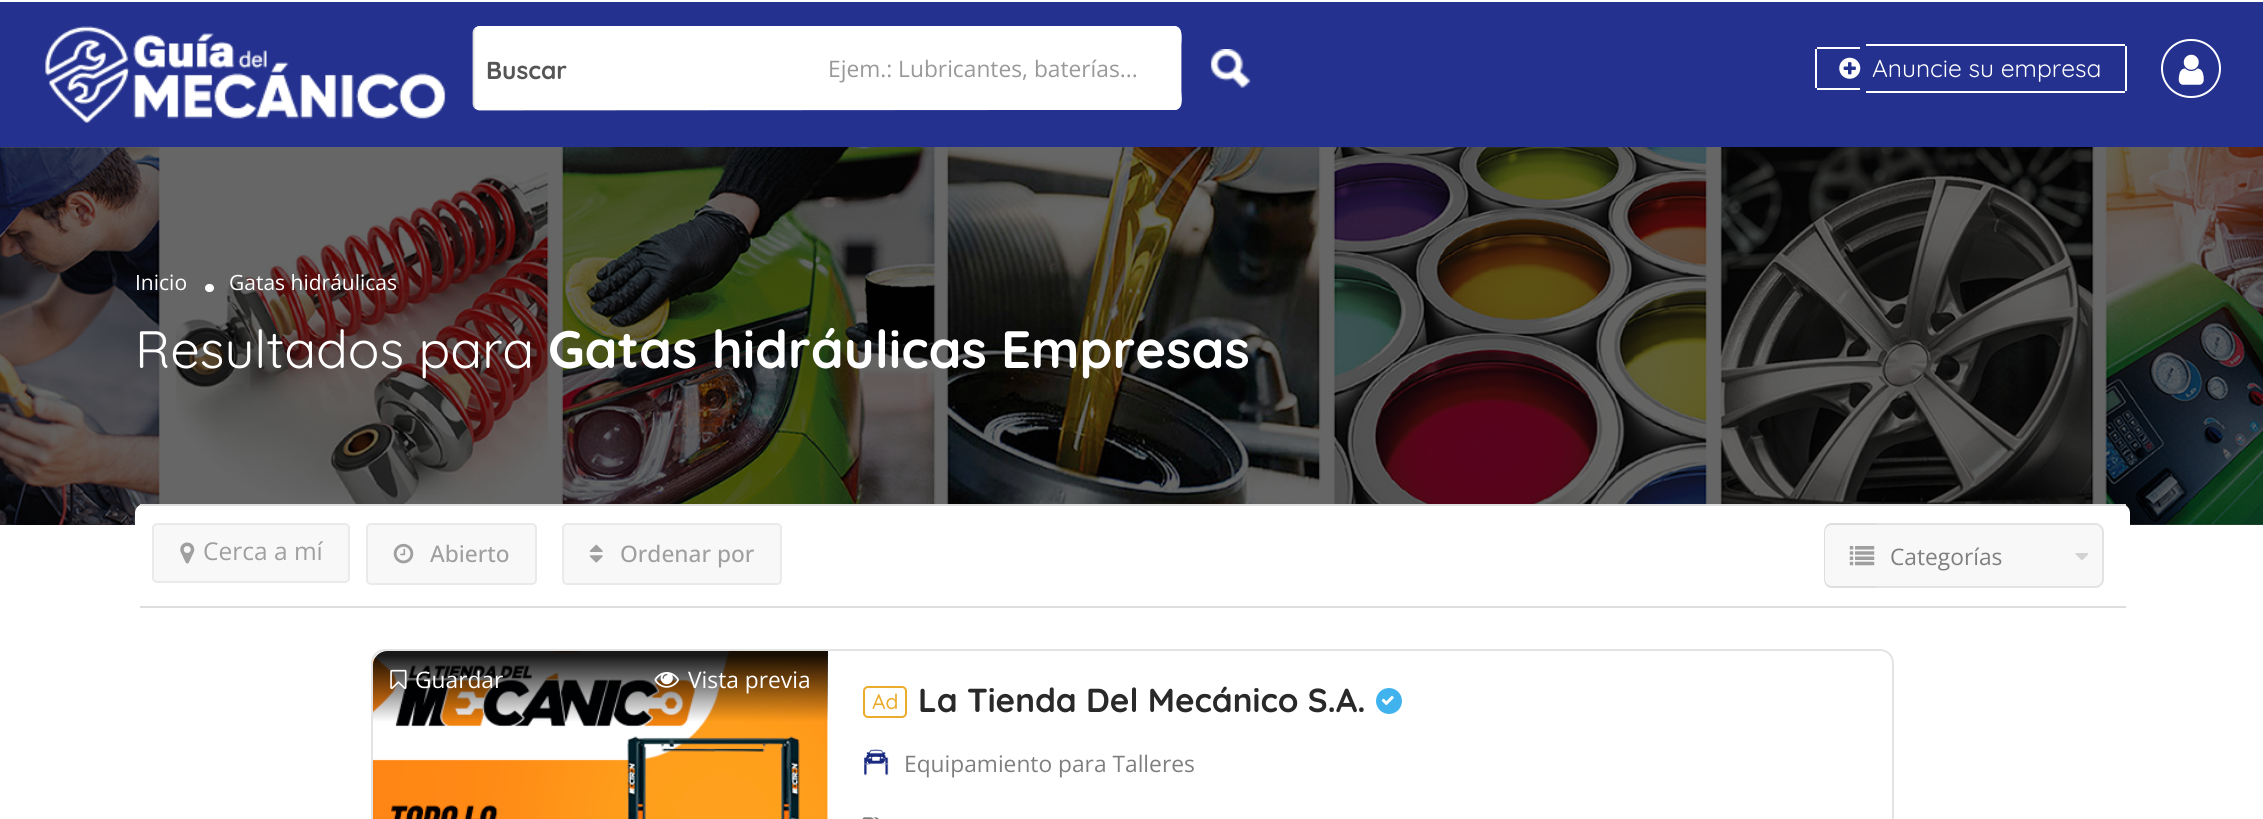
#include <cairo/cairo.h>
#include <math.h>
#include <stddef.h>

typedef struct { double x, y, w, h; unsigned color; } box_t;
static cairo_t *cr;

static void rgb(unsigned color)
{
	cairo_set_source_rgb(cr, (color >> 16) / 255.0, (color >> 8 & 255) / 255.0, (color & 255) / 255.0);
}

static void rrect(double x, double y, double w, double h, double r)
{
	cairo_new_sub_path(cr);
	cairo_arc(cr, x + w - r, y + h - r, r, 0, M_PI / 2);
	cairo_arc(cr, x + r, y + h - r, r, M_PI / 2, M_PI);
	cairo_arc(cr, x + r, y + r, r, M_PI, 1.5 * M_PI);
	cairo_arc(cr, x + w - r, y + r, r, 1.5 * M_PI, 2 * M_PI);
	cairo_close_path(cr);
}

static void image(const char *path, double x, double y, double w, double h)
{
	cairo_surface_t *image = cairo_image_surface_create_from_png(path);
	cairo_save(cr);
	cairo_set_source_surface(cr, image, x, y);
	cairo_rectangle(cr, x, y, w, h);
	cairo_fill(cr);
	cairo_restore(cr);
	cairo_surface_destroy(image);
}

int main(void) {
	cairo_surface_t *surface = cairo_image_surface_create(CAIRO_FORMAT_RGB24, 2263, 819);
	cr = cairo_create(surface);
	cairo_font_options_t *options = cairo_font_options_create();
	cairo_font_options_set_hint_metrics(options, CAIRO_HINT_METRICS_OFF);
	cairo_font_options_set_hint_style(options, CAIRO_HINT_STYLE_NONE);
	cairo_set_font_options(cr, options);
	cairo_set_miter_limit(cr, 4);
	cairo_pattern_t *gradient;
	rgb(0xffffff);
	cairo_paint(cr);
	rgb(0x24318e);
	cairo_rectangle(cr, 0, 2, 2263, 145);
	cairo_fill(cr);
	image("img/1.png", 45, 26, 401, 97);
	rgb(0xffffff);
	rrect(473, 26, 708, 84, 7);
	cairo_fill(cr);
	cairo_new_path(cr);
	cairo_move_to(cr, 475, 29);
	cairo_curve_to(cr, 476, 28, 477.5, 27.5, 479, 27);
	cairo_line_to(cr, 1174, 27);
	cairo_curve_to(cr, 1183, 27, 1180.5, 40.5, 1180.5, 45);
	cairo_line_to(cr, 1180.5, 91.5);
	cairo_curve_to(cr, 1180.5, 96, 1183, 107, 1176, 109);
	cairo_line_to(cr, 479, 109.5);
	cairo_curve_to(cr, 477.5, 109, 476, 108.5, 475, 107.5);
	cairo_set_line_width(cr, 1.8);
	cairo_stroke(cr);
	cairo_new_path(cr);
	cairo_move_to(cr, 475, 107.5);
	cairo_curve_to(cr, 474, 106.5, 473.5, 105, 473.5, 103);
	cairo_line_to(cr, 473.5, 33);
	cairo_curve_to(cr, 473.5, 31.5, 474, 30, 475, 29);
	rgb(0xdedede);
	cairo_stroke(cr);
	image("img/2.png", 1210, 49, 41, 39);
	{
		static const box_t items[] = {
			{1817, 47, 43, 2, 0xffffff},
			{1817, 88, 43, 2, 0xffffff},
			{1815, 49, 2, 39, 0xffffff},
			{1866, 44, 259, 2, 0xffffff},
			{2125, 46, 2, 45, 0xffffff},
			{1866, 91, 259, 2, 0xffffff},
		};
		for (size_t i = 0; i < sizeof items / sizeof *items; i++) {
			rgb(items[i].color);
			cairo_rectangle(cr, items[i].x, items[i].y, items[i].w, items[i].h);
			cairo_fill(cr);
		}
	}
	image("img/3.png", 1839, 57, 22, 22);
	rrect(2162, 40, 58, 57, 28.5);
	cairo_set_line_width(cr, 2);
	cairo_stroke(cr);
	image("img/4.png", 2178, 54, 26, 31);
	image("img/5.png", 0, 147, 2263, 378);
	rrect(205, 284, 9, 8, 4);
	cairo_fill(cr);
	rrect(135, 504, 1995, 103, 9);
	cairo_fill(cr);
	rgb(0xdedede);
	cairo_rectangle(cr, 140, 504, 1986, 2);
	cairo_fill(cr);
	cairo_rectangle(cr, 140, 606, 1986, 2);
	cairo_fill(cr);
	rgb(0xf8f8f8);
	rrect(153, 524, 196, 58, 4);
	cairo_fill_preserve(cr);
	rgb(0xeaeaea);
	cairo_stroke(cr);
	image("img/6.png", 180, 542, 15, 22);
	rgb(0xf8f8f8);
	rrect(367, 524, 169, 60, 4);
	cairo_fill_preserve(cr);
	rgb(0xeaeaea);
	cairo_stroke(cr);
	image("img/7.png", 393, 543, 21, 21);
	rgb(0xf8f8f8);
	rrect(563, 524, 218, 60, 4);
	cairo_fill_preserve(cr);
	rgb(0xeaeaea);
	cairo_stroke(cr);
	image("img/8.png", 589, 544, 14, 19);
	rgb(0xf8f8f8);
	cairo_new_path(cr);
	cairo_move_to(cr, 1833, 523);
	cairo_line_to(cr, 1876, 523);
	cairo_line_to(cr, 1876, 588);
	cairo_line_to(cr, 1833, 588);
	cairo_curve_to(cr, 1828, 588, 1824, 584, 1824, 579);
	cairo_line_to(cr, 1824, 532);
	cairo_curve_to(cr, 1824, 527, 1828, 523, 1833, 523);
	cairo_close_path(cr);
	cairo_fill(cr);
	rgb(0xdedede);
	cairo_set_fill_rule(cr, CAIRO_FILL_RULE_EVEN_ODD);
	cairo_new_path(cr);
	cairo_move_to(cr, 1832, 523);
	cairo_line_to(cr, 1876, 523);
	cairo_line_to(cr, 1876, 588);
	cairo_line_to(cr, 1832, 588);
	cairo_curve_to(cr, 1827, 588, 1824, 584, 1824, 579);
	cairo_line_to(cr, 1824, 532);
	cairo_curve_to(cr, 1824, 527, 1827, 523, 1832, 523);
	cairo_close_path(cr);
	cairo_move_to(cr, 1832, 525);
	cairo_line_to(cr, 1876, 525);
	cairo_line_to(cr, 1876, 586);
	cairo_line_to(cr, 1832, 586);
	cairo_curve_to(cr, 1828, 586, 1825, 583, 1825, 579);
	cairo_line_to(cr, 1825, 532);
	cairo_curve_to(cr, 1825, 528, 1828, 525, 1832, 525);
	cairo_close_path(cr);
	cairo_fill(cr);
	image("img/9.png", 1849, 546, 26, 20);
	rgb(0xf8f8f8);
	cairo_new_path(cr);
	cairo_move_to(cr, 1876, 523);
	cairo_line_to(cr, 2095, 523);
	cairo_curve_to(cr, 2100, 523, 2104, 527, 2104, 532);
	cairo_line_to(cr, 2104, 579);
	cairo_curve_to(cr, 2104, 584, 2100, 588, 2095, 588);
	cairo_line_to(cr, 1876, 588);
	cairo_close_path(cr);
	cairo_fill(cr);
	rgb(0xe3e3e3);
	cairo_new_path(cr);
	cairo_move_to(cr, 1876, 523);
	cairo_line_to(cr, 2095, 523);
	cairo_curve_to(cr, 2100, 523, 2104, 527, 2104, 532);
	cairo_line_to(cr, 2104, 579);
	cairo_curve_to(cr, 2104, 584, 2100, 588, 2095, 588);
	cairo_line_to(cr, 1876, 588);
	cairo_close_path(cr);
	cairo_move_to(cr, 1876, 525);
	cairo_line_to(cr, 2095, 525);
	cairo_curve_to(cr, 2099, 525, 2102, 528, 2102, 532);
	cairo_line_to(cr, 2102, 579);
	cairo_curve_to(cr, 2102, 583, 2099, 586, 2095, 586);
	cairo_line_to(cr, 1876, 586);
	cairo_close_path(cr);
	cairo_fill(cr);
	image("img/10.png", 2075, 553, 13, 8);
	rrect(372, 650, 1521, 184, 13);
	cairo_stroke(cr);
	image("img/11.png", 373, 651, 455, 168);
	gradient = cairo_pattern_create_linear(600, 728, 600, 651);
	cairo_pattern_add_color_stop_rgba(gradient, 0.08, 0, 0, 0, 0);
	cairo_pattern_add_color_stop_rgba(gradient, 0.94, 0, 0, 0, 0.9);
	cairo_set_source(cr, gradient);
	cairo_pattern_destroy(gradient);
	cairo_new_path(cr);
	cairo_move_to(cr, 387, 651);
	cairo_line_to(cr, 828, 651);
	cairo_line_to(cr, 828, 728);
	cairo_line_to(cr, 373, 728);
	cairo_line_to(cr, 373, 665);
	cairo_curve_to(cr, 373, 657.5, 379.5, 651, 387, 651);
	cairo_close_path(cr);
	cairo_fill(cr);
	image("img/12.png", 390, 669, 17, 21);
	image("img/13.png", 654, 672, 25, 16);
	rrect(864, 687, 42, 30, 4);
	rgb(0xebac2c);
	cairo_stroke(cr);
	rgb(0x40b3ef);
	cairo_arc(cr, 1389, 701, 13, 0, 2 * M_PI);
	cairo_fill(cr);
	image("img/14.png", 1381, 695, 13, 11);
	image("img/15.png", 864, 749, 25, 27);
	image("img/16.png", 862, 817, 17, 2);
	cairo_select_font_face(cr, "Quicksand", CAIRO_FONT_SLANT_NORMAL, CAIRO_FONT_WEIGHT_BOLD);
	cairo_set_font_size(cr, 24.5);
	rgb(0x555555);
	cairo_move_to(cr, 486, 79);
	cairo_show_text(cr, "Buscar");
	cairo_select_font_face(cr, "Open Sans", CAIRO_FONT_SLANT_NORMAL, CAIRO_FONT_WEIGHT_NORMAL);
	cairo_set_font_size(cr, 22.75);
	rgb(0x999999);
	cairo_move_to(cr, 828, 77);
	cairo_show_text(cr, "Ejem.: Lubricantes, baterías...");
	cairo_select_font_face(cr, "Quicksand", CAIRO_FONT_SLANT_NORMAL, CAIRO_FONT_WEIGHT_NORMAL);
	cairo_set_font_size(cr, 24.5);
	rgb(0xffffff);
	cairo_move_to(cr, 1872, 77);
	cairo_show_text(cr, "Anuncie su empresa");
	cairo_select_font_face(cr, "Open Sans", CAIRO_FONT_SLANT_NORMAL, CAIRO_FONT_WEIGHT_NORMAL);
	cairo_set_font_size(cr, 21);
	cairo_move_to(cr, 135, 290);
	cairo_show_text(cr, "Inicio");
	cairo_move_to(cr, 229, 290);
	cairo_show_text(cr, "Gatas hidráulicas");
	cairo_select_font_face(cr, "Quicksand", CAIRO_FONT_SLANT_NORMAL, CAIRO_FONT_WEIGHT_NORMAL);
	cairo_set_font_size(cr, 52.5);
	cairo_move_to(cr, 135, 368);
	cairo_show_text(cr, "Resultados para");
	cairo_select_font_face(cr, "Quicksand", CAIRO_FONT_SLANT_NORMAL, CAIRO_FONT_WEIGHT_BOLD);
	cairo_move_to(cr, 548, 368);
	cairo_show_text(cr, "Gatas hidráulicas");
	cairo_move_to(cr, 1001, 368);
	cairo_show_text(cr, "Empresas");
	cairo_select_font_face(cr, "Open Sans", CAIRO_FONT_SLANT_NORMAL, CAIRO_FONT_WEIGHT_NORMAL);
	cairo_set_font_size(cr, 24.5);
	rgb(0x9f9f9f);
	cairo_move_to(cr, 203, 560);
	cairo_show_text(cr, "Cerca a mí");
	cairo_select_font_face(cr, "Open Sans Medium", CAIRO_FONT_SLANT_NORMAL, CAIRO_FONT_WEIGHT_NORMAL);
	cairo_set_font_size(cr, 22.75);
	cairo_move_to(cr, 430, 562);
	cairo_show_text(cr, "Abierto");
	cairo_move_to(cr, 620, 562);
	cairo_show_text(cr, "Ordenar por");
	cairo_select_font_face(cr, "Open Sans", CAIRO_FONT_SLANT_NORMAL, CAIRO_FONT_WEIGHT_NORMAL);
	rgb(0x7f7f7f);
	cairo_move_to(cr, 1890, 565);
	cairo_show_text(cr, "Categorías");
	rgb(0xffffff);
	cairo_move_to(cr, 415, 688);
	cairo_show_text(cr, "Guardar");
	cairo_move_to(cr, 688, 688);
	cairo_show_text(cr, "Vista previa");
	cairo_select_font_face(cr, "Quicksand Medium", CAIRO_FONT_SLANT_NORMAL, CAIRO_FONT_WEIGHT_NORMAL);
	cairo_set_font_size(cr, 21);
	rgb(0xebac2c);
	cairo_move_to(cr, 872, 709);
	cairo_show_text(cr, "Ad");
	cairo_select_font_face(cr, "Quicksand", CAIRO_FONT_SLANT_NORMAL, CAIRO_FONT_WEIGHT_BOLD);
	cairo_set_font_size(cr, 33.25);
	rgb(0x292929);
	cairo_move_to(cr, 918, 712);
	cairo_show_text(cr, "La Tienda Del Mecánico S.A.");
	cairo_select_font_face(cr, "Open Sans", CAIRO_FONT_SLANT_NORMAL, CAIRO_FONT_WEIGHT_NORMAL);
	cairo_set_font_size(cr, 22.75);
	rgb(0x7f7f7f);
	cairo_move_to(cr, 904, 772);
	cairo_show_text(cr, "Equipamiento para Talleres");
	cairo_surface_write_to_png(surface, "page.png");
	cairo_font_options_destroy(options);
	cairo_destroy(cr);
	cairo_surface_destroy(surface);
	return 0;
}
